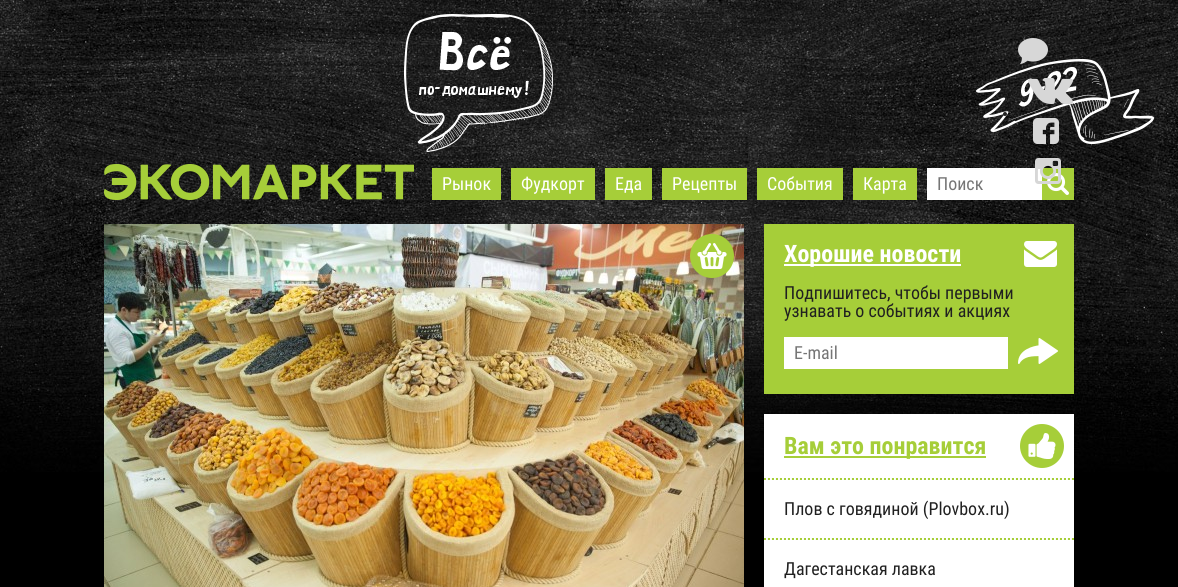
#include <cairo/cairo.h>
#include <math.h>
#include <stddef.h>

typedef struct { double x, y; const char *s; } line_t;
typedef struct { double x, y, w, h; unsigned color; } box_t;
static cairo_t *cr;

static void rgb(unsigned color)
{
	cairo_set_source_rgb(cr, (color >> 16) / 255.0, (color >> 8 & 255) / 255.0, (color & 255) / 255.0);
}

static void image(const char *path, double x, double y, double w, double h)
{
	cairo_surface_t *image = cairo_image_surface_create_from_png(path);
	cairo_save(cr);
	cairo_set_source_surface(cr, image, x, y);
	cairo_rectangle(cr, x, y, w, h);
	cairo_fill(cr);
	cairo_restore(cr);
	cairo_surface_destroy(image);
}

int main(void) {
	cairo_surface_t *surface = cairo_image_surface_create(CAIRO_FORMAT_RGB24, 1178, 587);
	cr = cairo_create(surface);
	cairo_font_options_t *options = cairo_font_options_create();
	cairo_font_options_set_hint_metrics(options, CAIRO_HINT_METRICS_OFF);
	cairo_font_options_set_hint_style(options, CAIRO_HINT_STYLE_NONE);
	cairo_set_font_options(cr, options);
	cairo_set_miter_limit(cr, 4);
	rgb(0x000000);
	cairo_paint(cr);
	image("img/1.png", 0, 0, 1178, 472);
	image("img/2.png", 404, 14, 149, 138);
	image("img/3.png", 104, 164, 310, 36);
	rgb(0x202020);
	cairo_arc(cr, 1005, 34, 2, 0, 2 * M_PI);
	cairo_fill(cr);
	image("img/8.png", 976, 59, 178, 85);
	image("img/4.png", 1018, 38, 30, 26);
	cairo_arc(cr, 1005, 74, 2, 0, 2 * M_PI);
	cairo_fill(cr);
	image("img/5.png", 1028, 78, 45, 26);
	cairo_arc(cr, 1005, 114, 2, 0, 2 * M_PI);
	cairo_fill(cr);
	image("img/6.png", 1033, 118, 26, 26);
	cairo_arc(cr, 1005, 154, 2, 0, 2 * M_PI);
	cairo_fill(cr);
	rgb(0xffffff);
	cairo_rectangle(cr, 927, 168, 115, 32);
	cairo_fill(cr);
	rgb(0xa6ce39);
	cairo_rectangle(cr, 1042, 168, 32, 32);
	cairo_fill(cr);
	image("img/9.png", 1047, 173, 22, 22);
	image("img/7.png", 1035, 158, 26, 26);
	{
		static const box_t items[] = {
			{432, 168, 69, 32, 0xa6ce39},
			{511, 168, 84, 32, 0xa6ce39},
			{605, 168, 47, 32, 0xa6ce39},
			{662, 168, 85, 32, 0xa6ce39},
			{757, 168, 86, 32, 0xa6ce39},
			{853, 168, 64, 32, 0xa6ce39},
		};
		for (size_t i = 0; i < sizeof items / sizeof *items; i++) {
			rgb(items[i].color);
			cairo_rectangle(cr, items[i].x, items[i].y, items[i].w, items[i].h);
			cairo_fill(cr);
		}
	}
	image("img/10.png", 104, 224, 640, 363);
	image("img/11.png", 690, 234, 44, 44);
	cairo_rectangle(cr, 764, 224, 310, 170);
	cairo_fill(cr);
	image("img/12.png", 1024, 241, 33, 26);
	rgb(0xffffff);
	cairo_rectangle(cr, 784, 264, 177, 2);
	cairo_fill(cr);
	cairo_rectangle(cr, 784, 337, 224, 32);
	cairo_fill(cr);
	image("img/13.png", 1018, 338, 40, 26);
	cairo_rectangle(cr, 764, 414, 310, 173);
	cairo_fill(cr);
	image("img/14.png", 1020, 424, 44, 44);
	rgb(0xa6ce39);
	cairo_rectangle(cr, 784, 456, 202, 2);
	cairo_fill(cr);
	image("img/15.png", 764, 478, 310, 2);
	image("img/15.png", 764, 538, 310, 2);
	cairo_select_font_face(cr, "Roboto Condensed", CAIRO_FONT_SLANT_NORMAL, CAIRO_FONT_WEIGHT_NORMAL);
	cairo_set_font_size(cr, 18);
	rgb(0xffffff);
	{
		static const line_t items[] = {
			{442, 190, "Рынок"},
			{521, 190, "Фудкорт"},
			{615, 190, "Еда"},
			{672, 190, "Рецепты"},
			{767, 190, "События"},
			{863, 190, "Карта"},
		};
		for (size_t i = 0; i < sizeof items / sizeof *items; i++) {
			cairo_move_to(cr, items[i].x, items[i].y);
			cairo_show_text(cr, items[i].s);
		}
	}
	rgb(0x757575);
	cairo_move_to(cr, 937, 190);
	cairo_show_text(cr, "Поиск");
	cairo_select_font_face(cr, "Roboto Condensed", CAIRO_FONT_SLANT_NORMAL, CAIRO_FONT_WEIGHT_BOLD);
	cairo_set_font_size(cr, 24);
	rgb(0xffffff);
	cairo_move_to(cr, 784, 262);
	cairo_show_text(cr, "Хорошие новости");
	cairo_select_font_face(cr, "Roboto Condensed", CAIRO_FONT_SLANT_NORMAL, CAIRO_FONT_WEIGHT_NORMAL);
	cairo_set_font_size(cr, 18);
	rgb(0x202020);
	cairo_move_to(cr, 784, 299);
	cairo_show_text(cr, "Подпишитесь, чтобы первыми");
	cairo_move_to(cr, 784, 317);
	cairo_show_text(cr, "узнавать о событиях и акциях");
	rgb(0x757575);
	cairo_move_to(cr, 794, 359);
	cairo_show_text(cr, "E-mail");
	cairo_select_font_face(cr, "Roboto Condensed", CAIRO_FONT_SLANT_NORMAL, CAIRO_FONT_WEIGHT_BOLD);
	cairo_set_font_size(cr, 24);
	rgb(0xa6ce39);
	cairo_move_to(cr, 784, 454);
	cairo_show_text(cr, "Вам это понравится");
	cairo_select_font_face(cr, "Roboto Condensed", CAIRO_FONT_SLANT_NORMAL, CAIRO_FONT_WEIGHT_NORMAL);
	cairo_set_font_size(cr, 18);
	rgb(0x202020);
	cairo_move_to(cr, 784, 515);
	cairo_show_text(cr, "Плов с говядиной (Plovbox.ru)");
	cairo_move_to(cr, 784, 575);
	cairo_show_text(cr, "Дагестанская лавка");
	cairo_surface_write_to_png(surface, "page.png");
	cairo_font_options_destroy(options);
	cairo_destroy(cr);
	cairo_surface_destroy(surface);
	return 0;
}
